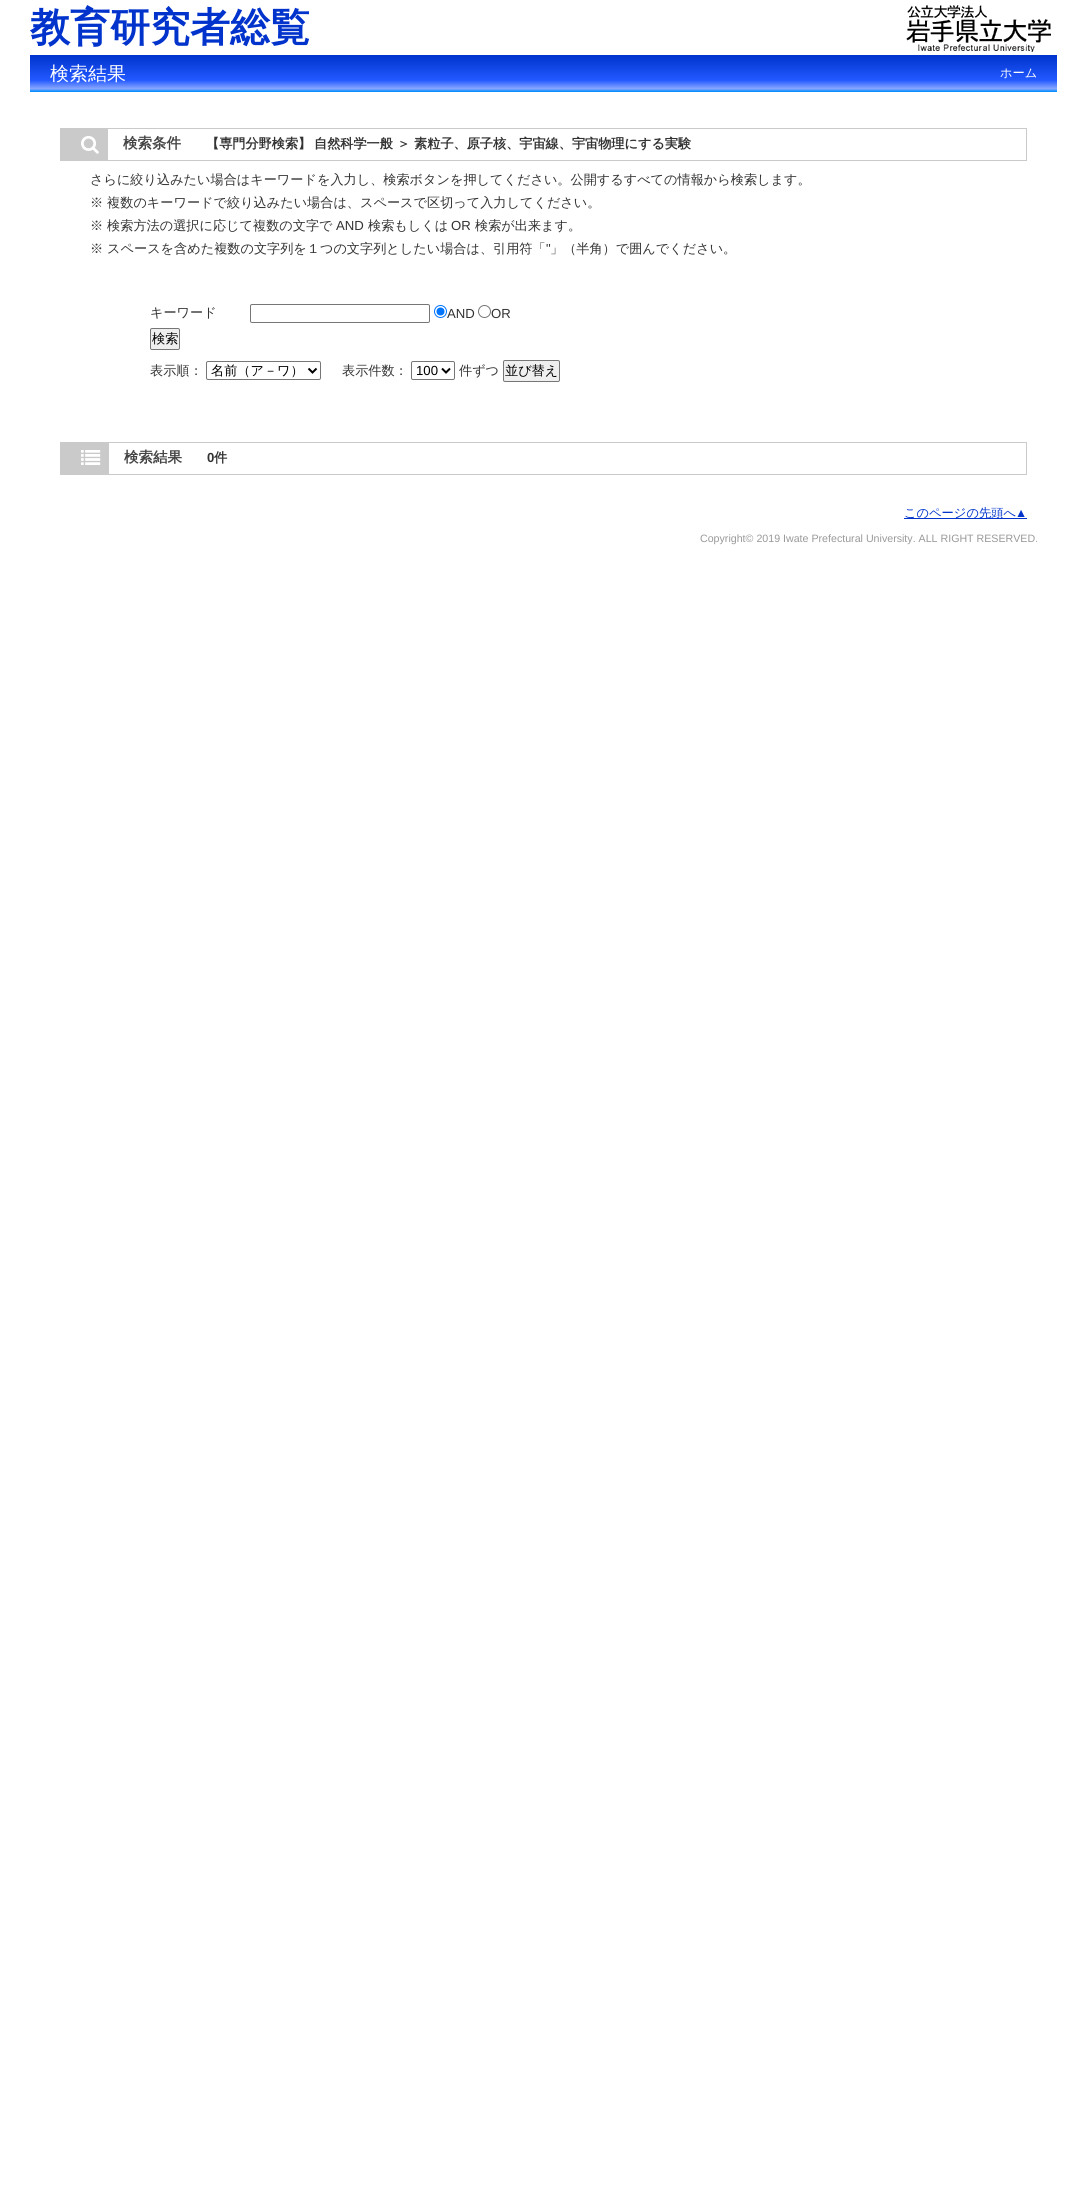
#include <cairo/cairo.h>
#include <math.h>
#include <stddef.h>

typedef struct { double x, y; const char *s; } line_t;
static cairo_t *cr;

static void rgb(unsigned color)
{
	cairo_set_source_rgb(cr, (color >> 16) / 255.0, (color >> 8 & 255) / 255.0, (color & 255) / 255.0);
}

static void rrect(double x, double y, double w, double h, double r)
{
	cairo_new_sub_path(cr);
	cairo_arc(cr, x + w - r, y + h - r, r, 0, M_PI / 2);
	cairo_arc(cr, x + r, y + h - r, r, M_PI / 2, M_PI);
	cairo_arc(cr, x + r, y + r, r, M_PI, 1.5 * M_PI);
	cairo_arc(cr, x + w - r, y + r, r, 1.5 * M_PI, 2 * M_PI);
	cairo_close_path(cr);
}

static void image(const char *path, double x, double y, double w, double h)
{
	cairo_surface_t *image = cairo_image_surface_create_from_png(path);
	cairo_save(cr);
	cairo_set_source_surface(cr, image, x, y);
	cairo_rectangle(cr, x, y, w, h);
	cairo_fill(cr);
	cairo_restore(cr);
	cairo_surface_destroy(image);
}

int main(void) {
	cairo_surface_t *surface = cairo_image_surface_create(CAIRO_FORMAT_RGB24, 1087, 2211);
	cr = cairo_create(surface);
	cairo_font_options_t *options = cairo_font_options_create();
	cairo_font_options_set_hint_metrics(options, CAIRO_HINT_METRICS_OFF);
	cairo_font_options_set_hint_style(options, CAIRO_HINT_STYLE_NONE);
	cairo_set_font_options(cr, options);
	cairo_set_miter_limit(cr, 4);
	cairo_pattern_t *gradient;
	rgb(0xffffff);
	cairo_paint(cr);
	image("img/1.png", 906, 5, 145, 47);
	gradient = cairo_pattern_create_linear(544, 55, 544, 92);
	cairo_pattern_add_color_stop_rgba(gradient, 0, 0, 0.2, 0.8, 1);
	cairo_pattern_add_color_stop_rgba(gradient, 0.68, 0.133, 0.349, 1, 1);
	cairo_pattern_add_color_stop_rgba(gradient, 0.91, 0.533, 0.651, 1, 1);
	cairo_pattern_add_color_stop_rgba(gradient, 0.99, 0.02, 0.553, 1, 1);
	cairo_pattern_add_color_stop_rgba(gradient, 1, 0.02, 0.553, 1, 1);
	cairo_set_source(cr, gradient);
	cairo_pattern_destroy(gradient);
	cairo_rectangle(cr, 30, 55, 1027, 37);
	cairo_fill(cr);
	cairo_rectangle(cr, 60.5, 128.5, 966, 32);
	rgb(0xcacaca);
	cairo_set_line_width(cr, 1);
	cairo_stroke(cr);
	cairo_rectangle(cr, 61, 129, 47, 31);
	cairo_fill(cr);
	image("img/2.png", 81, 136, 18, 18);
	rrect(250.5, 304.5, 179, 18, 1.5);
	rgb(0x767676);
	cairo_stroke(cr);
	cairo_arc(cr, 440.5, 311.5, 6, 0, 2 * M_PI);
	rgb(0x0075ff);
	cairo_stroke(cr);
	cairo_arc(cr, 440.5, 311.5, 4, 0, 2 * M_PI);
	cairo_fill(cr);
	cairo_arc(cr, 484.5, 311.5, 6, 0, 2 * M_PI);
	rgb(0x767676);
	cairo_stroke(cr);
	rgb(0xefefef);
	rrect(150.5, 328.5, 29, 21, 1.5);
	cairo_fill_preserve(cr);
	rgb(0x767676);
	cairo_stroke(cr);
	rrect(206.5, 361.5, 114, 18, 1.5);
	cairo_stroke(cr);
	cairo_new_path(cr);
	cairo_move_to(cr, 308.5, 368.5);
	cairo_line_to(cr, 312.5, 372.5);
	cairo_line_to(cr, 316.5, 368.5);
	rgb(0x000000);
	cairo_set_line_width(cr, 2);
	cairo_stroke(cr);
	rrect(411.5, 361.5, 43, 18, 1.5);
	rgb(0x767676);
	cairo_set_line_width(cr, 1);
	cairo_stroke(cr);
	cairo_new_path(cr);
	cairo_move_to(cr, 442, 368.5);
	cairo_line_to(cr, 446, 372.5);
	cairo_line_to(cr, 450, 368.5);
	rgb(0x000000);
	cairo_set_line_width(cr, 2);
	cairo_stroke(cr);
	rgb(0xefefef);
	rrect(503.5, 360.5, 56, 21, 1.5);
	cairo_fill_preserve(cr);
	rgb(0x767676);
	cairo_set_line_width(cr, 1);
	cairo_stroke(cr);
	cairo_rectangle(cr, 60.5, 442.5, 966, 32);
	rgb(0xcacaca);
	cairo_stroke(cr);
	cairo_rectangle(cr, 61, 443, 48, 31);
	cairo_fill(cr);
	image("img/3.png", 81, 450, 20, 15);
	rgb(0x0033cc);
	cairo_rectangle(cr, 904, 518, 123, 1);
	cairo_fill(cr);
	cairo_select_font_face(cr, "WenQuanYi Zen Hei", CAIRO_FONT_SLANT_NORMAL, CAIRO_FONT_WEIGHT_BOLD);
	cairo_set_font_size(cr, 40);
	cairo_move_to(cr, 30, 41);
	cairo_show_text(cr, "教育研究者総覧");
	cairo_select_font_face(cr, "WenQuanYi Zen Hei Medium", CAIRO_FONT_SLANT_NORMAL, CAIRO_FONT_WEIGHT_NORMAL);
	cairo_set_font_size(cr, 19);
	rgb(0xffffff);
	cairo_move_to(cr, 50, 80);
	cairo_show_text(cr, "検索結果");
	cairo_set_font_size(cr, 12.25);
	cairo_move_to(cr, 1000, 77);
	cairo_show_text(cr, "ホーム");
	cairo_select_font_face(cr, "WenQuanYi Zen Hei", CAIRO_FONT_SLANT_NORMAL, CAIRO_FONT_WEIGHT_BOLD);
	cairo_set_font_size(cr, 14.5);
	rgb(0x444444);
	cairo_move_to(cr, 123, 148);
	cairo_show_text(cr, "検索条件");
	cairo_set_font_size(cr, 13.15);
	rgb(0x333333);
	{
		static const line_t items[] = {
			{206, 148, "【専門分野検索】"},
			{314, 148, "自然科学一般"},
			{397, 148, "＞ 素粒子、原子核、宇宙線、宇宙物理にする実験"},
		};
		for (size_t i = 0; i < sizeof items / sizeof *items; i++) {
			cairo_move_to(cr, items[i].x, items[i].y);
			cairo_show_text(cr, items[i].s);
		}
	}
	cairo_select_font_face(cr, "WenQuanYi Zen Hei Medium", CAIRO_FONT_SLANT_NORMAL, CAIRO_FONT_WEIGHT_NORMAL);
	{
		static const line_t items[] = {
			{90, 184, "さらに絞り込みたい場合はキーワードを入力し、検索ボタンを押してください。公開するすべての情報から検索します。"},
			{90, 207, "※ 複数のキーワードで絞り込みたい場合は、スペースで区切って入力してください。"},
			{90, 230, "※ 検索方法の選択に応じて複数の文字で"},
		};
		for (size_t i = 0; i < sizeof items / sizeof *items; i++) {
			cairo_move_to(cr, items[i].x, items[i].y);
			cairo_show_text(cr, items[i].s);
		}
	}
	cairo_select_font_face(cr, "Liberation Sans", CAIRO_FONT_SLANT_NORMAL, CAIRO_FONT_WEIGHT_NORMAL);
	cairo_move_to(cr, 336, 230);
	cairo_show_text(cr, "AND");
	cairo_select_font_face(cr, "WenQuanYi Zen Hei Medium", CAIRO_FONT_SLANT_NORMAL, CAIRO_FONT_WEIGHT_NORMAL);
	cairo_move_to(cr, 368, 230);
	cairo_show_text(cr, "検索もしくは");
	cairo_select_font_face(cr, "Liberation Sans", CAIRO_FONT_SLANT_NORMAL, CAIRO_FONT_WEIGHT_NORMAL);
	cairo_move_to(cr, 451, 230);
	cairo_show_text(cr, "OR");
	cairo_select_font_face(cr, "WenQuanYi Zen Hei Medium", CAIRO_FONT_SLANT_NORMAL, CAIRO_FONT_WEIGHT_NORMAL);
	cairo_move_to(cr, 475, 230);
	cairo_show_text(cr, "検索が出来ます。");
	cairo_move_to(cr, 90, 253);
	cairo_show_text(cr, "※ スペースを含めた複数の文字列を１つの文字列としたい場合は、引用符「");
	cairo_select_font_face(cr, "Liberation Sans", CAIRO_FONT_SLANT_NORMAL, CAIRO_FONT_WEIGHT_NORMAL);
	cairo_move_to(cr, 546, 253);
	cairo_show_text(cr, "\"");
	cairo_select_font_face(cr, "WenQuanYi Zen Hei Medium", CAIRO_FONT_SLANT_NORMAL, CAIRO_FONT_WEIGHT_NORMAL);
	cairo_move_to(cr, 550, 253);
	cairo_show_text(cr, "」（半角）で囲んでください。");
	cairo_move_to(cr, 150, 317);
	cairo_show_text(cr, "キーワード");
	cairo_select_font_face(cr, "Liberation Sans", CAIRO_FONT_SLANT_NORMAL, CAIRO_FONT_WEIGHT_NORMAL);
	cairo_move_to(cr, 447, 318);
	cairo_show_text(cr, "AND");
	cairo_move_to(cr, 491, 318);
	cairo_show_text(cr, "OR");
	cairo_select_font_face(cr, "WenQuanYi Zen Hei Medium", CAIRO_FONT_SLANT_NORMAL, CAIRO_FONT_WEIGHT_NORMAL);
	rgb(0x000000);
	cairo_move_to(cr, 152, 343);
	cairo_show_text(cr, "検索");
	rgb(0x333333);
	cairo_move_to(cr, 150, 375);
	cairo_show_text(cr, "表示順：");
	rgb(0x000000);
	cairo_move_to(cr, 211, 375);
	cairo_show_text(cr, "名前（ア－ワ）");
	rgb(0x333333);
	cairo_move_to(cr, 342, 375);
	cairo_show_text(cr, "表示件数：");
	cairo_select_font_face(cr, "Liberation Sans", CAIRO_FONT_SLANT_NORMAL, CAIRO_FONT_WEIGHT_NORMAL);
	rgb(0x000000);
	cairo_move_to(cr, 416, 375);
	cairo_show_text(cr, "100");
	cairo_select_font_face(cr, "WenQuanYi Zen Hei Medium", CAIRO_FONT_SLANT_NORMAL, CAIRO_FONT_WEIGHT_NORMAL);
	rgb(0x333333);
	cairo_move_to(cr, 459, 375);
	cairo_show_text(cr, "件ずつ");
	rgb(0x000000);
	cairo_move_to(cr, 505, 375);
	cairo_show_text(cr, "並び替え");
	cairo_select_font_face(cr, "WenQuanYi Zen Hei", CAIRO_FONT_SLANT_NORMAL, CAIRO_FONT_WEIGHT_BOLD);
	cairo_set_font_size(cr, 14.5);
	rgb(0x444444);
	cairo_move_to(cr, 124, 462);
	cairo_show_text(cr, "検索結果");
	cairo_select_font_face(cr, "Liberation Sans", CAIRO_FONT_SLANT_NORMAL, CAIRO_FONT_WEIGHT_BOLD);
	cairo_set_font_size(cr, 13.15);
	rgb(0x333333);
	cairo_move_to(cr, 207, 462);
	cairo_show_text(cr, "0");
	cairo_select_font_face(cr, "WenQuanYi Zen Hei", CAIRO_FONT_SLANT_NORMAL, CAIRO_FONT_WEIGHT_BOLD);
	cairo_move_to(cr, 214, 462);
	cairo_show_text(cr, "件");
	cairo_select_font_face(cr, "WenQuanYi Zen Hei Medium", CAIRO_FONT_SLANT_NORMAL, CAIRO_FONT_WEIGHT_NORMAL);
	cairo_set_font_size(cr, 12.25);
	rgb(0x0033cc);
	cairo_move_to(cr, 904, 517);
	cairo_show_text(cr, "このページの先頭へ");
	cairo_select_font_face(cr, "Liberation Sans", CAIRO_FONT_SLANT_NORMAL, CAIRO_FONT_WEIGHT_NORMAL);
	cairo_move_to(cr, 1015, 517);
	cairo_show_text(cr, "▲");
	cairo_set_font_size(cr, 10.65);
	rgb(0x999999);
	cairo_move_to(cr, 700, 542);
	cairo_show_text(cr, "Copyright© 2019 Iwate Prefectural University. ALL RIGHT RESERVED.");
	cairo_surface_write_to_png(surface, "page.png");
	cairo_font_options_destroy(options);
	cairo_destroy(cr);
	cairo_surface_destroy(surface);
	return 0;
}
